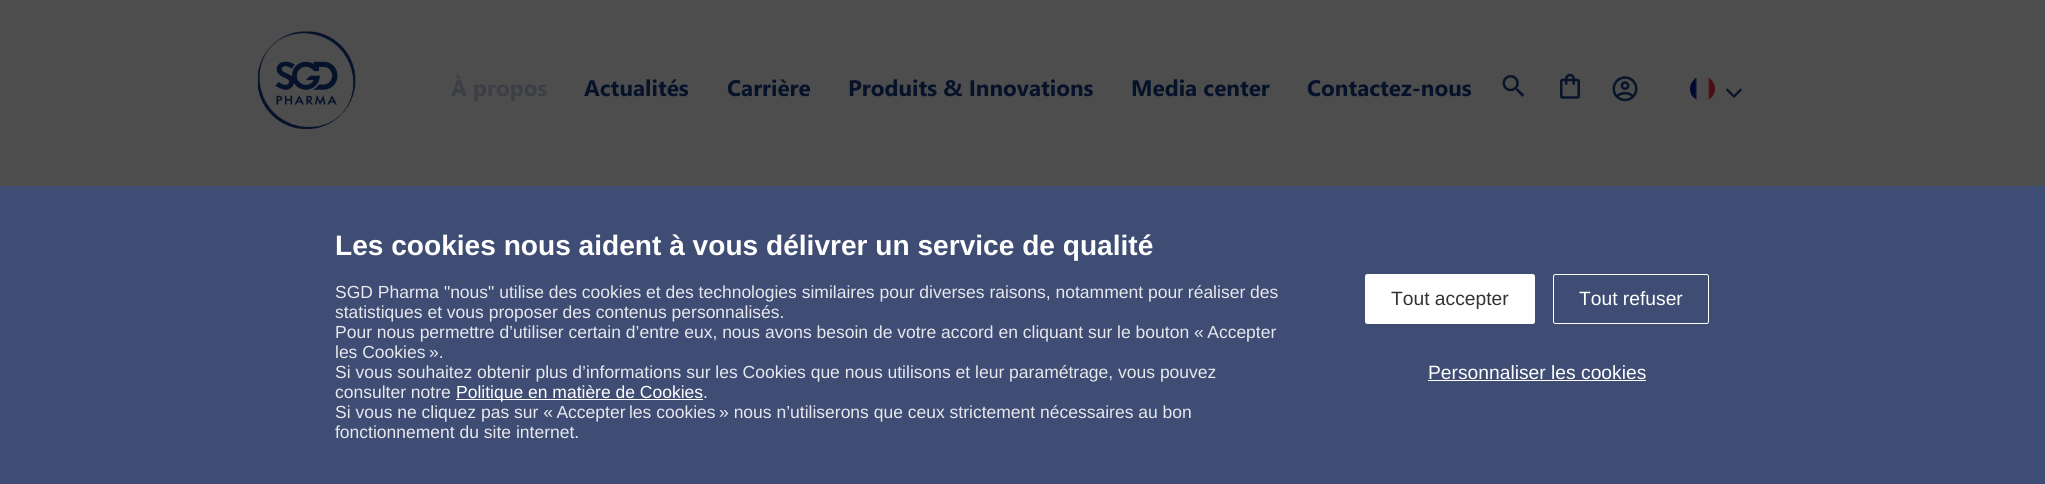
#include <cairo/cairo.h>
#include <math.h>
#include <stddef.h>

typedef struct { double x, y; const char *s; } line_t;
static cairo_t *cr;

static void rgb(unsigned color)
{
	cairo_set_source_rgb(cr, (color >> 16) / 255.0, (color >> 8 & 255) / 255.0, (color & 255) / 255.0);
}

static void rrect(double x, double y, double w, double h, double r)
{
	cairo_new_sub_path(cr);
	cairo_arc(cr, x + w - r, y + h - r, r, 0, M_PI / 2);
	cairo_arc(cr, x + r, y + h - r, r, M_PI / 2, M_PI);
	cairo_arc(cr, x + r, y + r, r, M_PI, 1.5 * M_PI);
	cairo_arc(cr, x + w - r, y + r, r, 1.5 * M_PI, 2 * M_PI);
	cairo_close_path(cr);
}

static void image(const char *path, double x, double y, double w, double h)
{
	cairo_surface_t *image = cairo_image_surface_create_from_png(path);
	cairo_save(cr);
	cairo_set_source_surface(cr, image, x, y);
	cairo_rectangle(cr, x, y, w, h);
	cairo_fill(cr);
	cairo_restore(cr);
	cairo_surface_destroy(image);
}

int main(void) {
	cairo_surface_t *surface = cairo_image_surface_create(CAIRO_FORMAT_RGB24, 2045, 484);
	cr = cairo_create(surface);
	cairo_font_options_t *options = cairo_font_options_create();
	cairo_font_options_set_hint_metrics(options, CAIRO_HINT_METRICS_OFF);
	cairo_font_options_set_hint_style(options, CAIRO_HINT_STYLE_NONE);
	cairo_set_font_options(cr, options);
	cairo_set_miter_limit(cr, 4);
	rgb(0x4d4d4d);
	cairo_paint(cr);
	image("img/1.png", 258, 31, 98, 98);
	image("img/2.png", 1502, 75, 23, 22);
	image("img/3.png", 1560, 73, 20, 26);
	image("img/4.png", 1612, 76, 26, 26);
	image("img/5.png", 1690, 77, 25, 23);
	image("img/6.png", 1726, 88, 16, 10);
	rgb(0x3f4d74);
	cairo_rectangle(cr, 0, 186, 2045, 298);
	cairo_fill(cr);
	rgb(0xffffff);
	cairo_rectangle(cr, 456, 399, 247, 1);
	cairo_fill(cr);
	rrect(1365.5, 274.5, 169, 49, 2);
	cairo_fill_preserve(cr);
	cairo_set_line_width(cr, 1);
	cairo_stroke(cr);
	rrect(1553.5, 274.5, 155, 49, 2);
	cairo_stroke(cr);
	cairo_rectangle(cr, 1428, 380, 218, 1);
	cairo_fill(cr);
	cairo_select_font_face(cr, "Segoe UI", CAIRO_FONT_SLANT_NORMAL, CAIRO_FONT_WEIGHT_BOLD);
	cairo_set_font_size(cr, 22.5);
	rgb(0x3c3e45);
	cairo_move_to(cr, 451, 96);
	cairo_show_text(cr, "À propos");
	rgb(0x06122a);
	{
		static const line_t items[] = {
			{584, 96, "Actualités"},
			{727, 96, "Carrière"},
			{848, 96, "Produits & Innovations"},
			{1131, 96, "Media center"},
			{1307, 96, "Contactez-nous"},
		};
		for (size_t i = 0; i < sizeof items / sizeof *items; i++) {
			cairo_move_to(cr, items[i].x, items[i].y);
			cairo_show_text(cr, items[i].s);
		}
	}
	cairo_select_font_face(cr, "Liberation Sans", CAIRO_FONT_SLANT_NORMAL, CAIRO_FONT_WEIGHT_BOLD);
	cairo_set_font_size(cr, 28.1);
	rgb(0xffffff);
	cairo_move_to(cr, 335, 255);
	cairo_show_text(cr, "Les cookies nous aident à vous délivrer un service de qualité");
	cairo_select_font_face(cr, "Liberation Sans", CAIRO_FONT_SLANT_NORMAL, CAIRO_FONT_WEIGHT_NORMAL);
	cairo_set_font_size(cr, 17.5);
	rgb(0xe7e8ed);
	{
		static const line_t items[] = {
			{335, 298, "SGD Pharma \"nous\" utilise des cookies et des technologies similaires pour diverses raisons, notamment pour réaliser des"},
			{335, 318, "statistiques et vous proposer des contenus personnalisés."},
			{335, 338, "Pour nous permettre d’utiliser certain d’entre eux, nous avons besoin de votre accord en cliquant sur le bouton « Accepter"},
			{335, 358, "les Cookies »."},
			{335, 378, "Si vous souhaitez obtenir plus d’informations sur les Cookies que nous utilisons et leur paramétrage, vous pouvez"},
			{335, 398, "consulter notre"},
		};
		for (size_t i = 0; i < sizeof items / sizeof *items; i++) {
			cairo_move_to(cr, items[i].x, items[i].y);
			cairo_show_text(cr, items[i].s);
		}
	}
	rgb(0xffffff);
	cairo_move_to(cr, 456, 398);
	cairo_show_text(cr, "Politique en matière de Cookies");
	rgb(0xe7e8ed);
	{
		static const line_t items[] = {
			{703, 398, "."},
			{335, 418, "Si vous ne cliquez pas sur « Accepter les cookies » nous n’utiliserons que ceux strictement nécessaires au bon"},
			{335, 438, "fonctionnement du site internet."},
		};
		for (size_t i = 0; i < sizeof items / sizeof *items; i++) {
			cairo_move_to(cr, items[i].x, items[i].y);
			cairo_show_text(cr, items[i].s);
		}
	}
	cairo_set_font_size(cr, 19.25);
	rgb(0x333333);
	cairo_move_to(cr, 1391, 305);
	cairo_show_text(cr, "Tout accepter");
	rgb(0xffffff);
	cairo_move_to(cr, 1579, 305);
	cairo_show_text(cr, "Tout refuser");
	cairo_move_to(cr, 1428, 379);
	cairo_show_text(cr, "Personnaliser les cookies");
	cairo_surface_write_to_png(surface, "page.png");
	cairo_font_options_destroy(options);
	cairo_destroy(cr);
	cairo_surface_destroy(surface);
	return 0;
}
